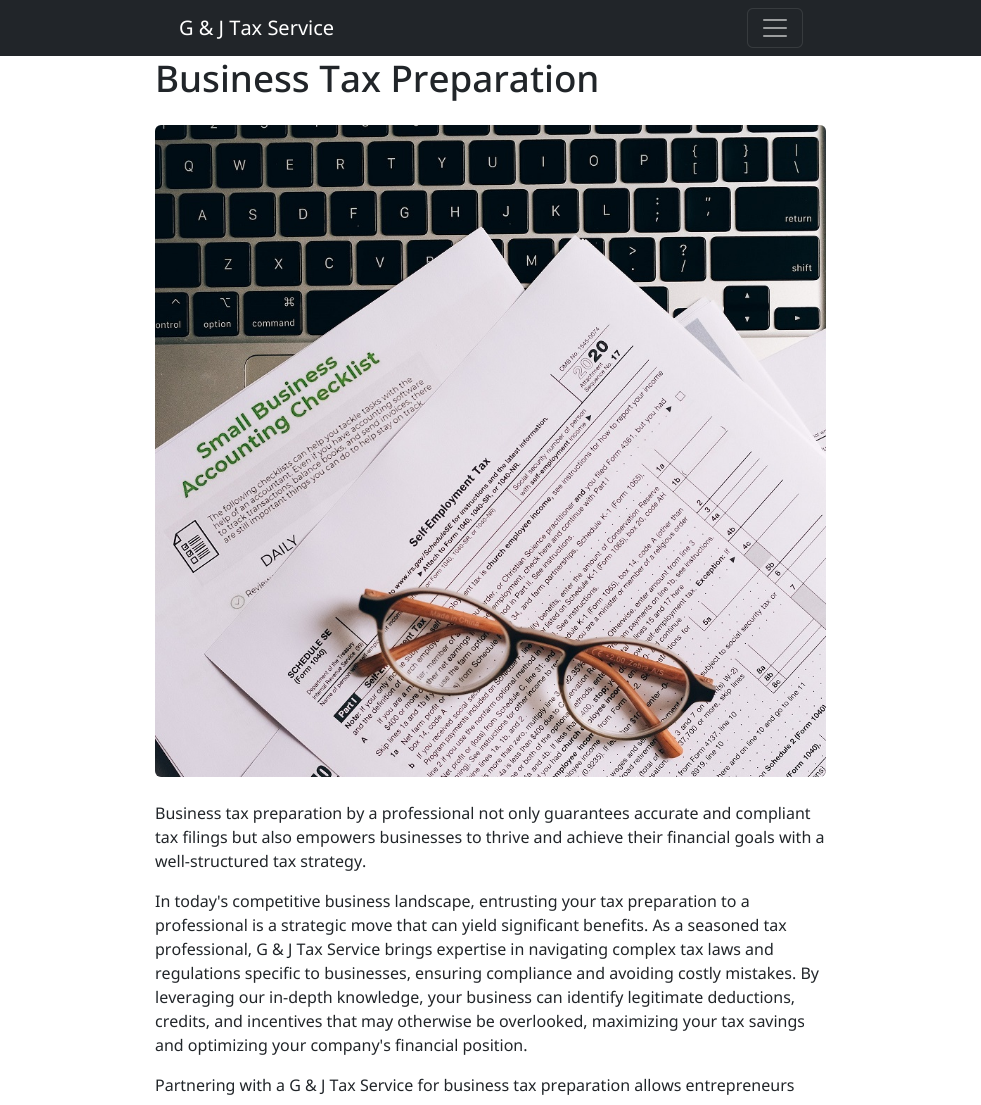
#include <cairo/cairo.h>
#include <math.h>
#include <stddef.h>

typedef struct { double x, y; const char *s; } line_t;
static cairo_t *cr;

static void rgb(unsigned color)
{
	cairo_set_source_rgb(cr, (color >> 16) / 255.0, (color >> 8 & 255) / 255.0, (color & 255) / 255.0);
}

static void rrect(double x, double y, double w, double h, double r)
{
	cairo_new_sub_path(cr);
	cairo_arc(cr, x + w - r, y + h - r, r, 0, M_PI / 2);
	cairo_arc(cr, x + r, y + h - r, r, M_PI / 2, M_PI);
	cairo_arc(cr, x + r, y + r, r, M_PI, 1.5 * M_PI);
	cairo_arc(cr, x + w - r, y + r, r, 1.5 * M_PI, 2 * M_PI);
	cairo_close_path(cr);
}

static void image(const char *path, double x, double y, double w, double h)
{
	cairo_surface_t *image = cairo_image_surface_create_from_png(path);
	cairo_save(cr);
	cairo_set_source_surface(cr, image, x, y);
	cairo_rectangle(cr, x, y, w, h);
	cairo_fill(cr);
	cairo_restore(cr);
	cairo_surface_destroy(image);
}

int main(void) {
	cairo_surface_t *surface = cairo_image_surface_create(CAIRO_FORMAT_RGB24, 981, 1105);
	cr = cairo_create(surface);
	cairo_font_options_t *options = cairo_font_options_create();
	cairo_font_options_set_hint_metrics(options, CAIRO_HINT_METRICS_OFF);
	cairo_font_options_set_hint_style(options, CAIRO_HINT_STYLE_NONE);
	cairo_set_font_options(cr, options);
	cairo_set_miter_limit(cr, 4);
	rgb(0xffffff);
	cairo_paint(cr);
	rgb(0x212529);
	cairo_rectangle(cr, 0, 0, 981, 56);
	cairo_fill(cr);
	rrect(747.5, 8.5, 55, 39, 5.5);
	rgb(0x373b3e);
	cairo_set_line_width(cr, 1);
	cairo_stroke(cr);
	image("img/1.png", 763, 19, 24, 18);
	image("img/2.png", 155, 125, 671, 652);
	cairo_select_font_face(cr, "Noto Sans", CAIRO_FONT_SLANT_NORMAL, CAIRO_FONT_WEIGHT_NORMAL);
	cairo_set_font_size(cr, 20);
	rgb(0xffffff);
	cairo_move_to(cr, 179, 35);
	cairo_show_text(cr, "G & J Tax Service");
	cairo_select_font_face(cr, "Noto Sans Medium", CAIRO_FONT_SLANT_NORMAL, CAIRO_FONT_WEIGHT_NORMAL);
	cairo_set_font_size(cr, 36.75);
	rgb(0x212529);
	cairo_move_to(cr, 155, 92);
	cairo_show_text(cr, "Business Tax Preparation");
	cairo_select_font_face(cr, "Noto Sans", CAIRO_FONT_SLANT_NORMAL, CAIRO_FONT_WEIGHT_NORMAL);
	cairo_set_font_size(cr, 16);
	{
		static const line_t items[] = {
			{155, 819, "Business tax preparation by a professional not only guarantees accurate and compliant"},
			{155, 843, "tax filings but also empowers businesses to thrive and achieve their financial goals with a"},
			{155, 867, "well-structured tax strategy."},
			{155, 907, "In today's competitive business landscape, entrusting your tax preparation to a"},
			{155, 931, "professional is a strategic move that can yield significant benefits. As a seasoned tax"},
			{155, 955, "professional, G & J Tax Service brings expertise in navigating complex tax laws and"},
			{155, 979, "regulations specific to businesses, ensuring compliance and avoiding costly mistakes. By"},
			{155, 1003, "leveraging our in-depth knowledge, your business can identify legitimate deductions,"},
			{155, 1027, "credits, and incentives that may otherwise be overlooked, maximizing your tax savings"},
			{155, 1051, "and optimizing your company's financial position."},
			{155, 1091, "Partnering with a G & J Tax Service for business tax preparation allows entrepreneurs"},
		};
		for (size_t i = 0; i < sizeof items / sizeof *items; i++) {
			cairo_move_to(cr, items[i].x, items[i].y);
			cairo_show_text(cr, items[i].s);
		}
	}
	cairo_surface_write_to_png(surface, "page.png");
	cairo_font_options_destroy(options);
	cairo_destroy(cr);
	cairo_surface_destroy(surface);
	return 0;
}
